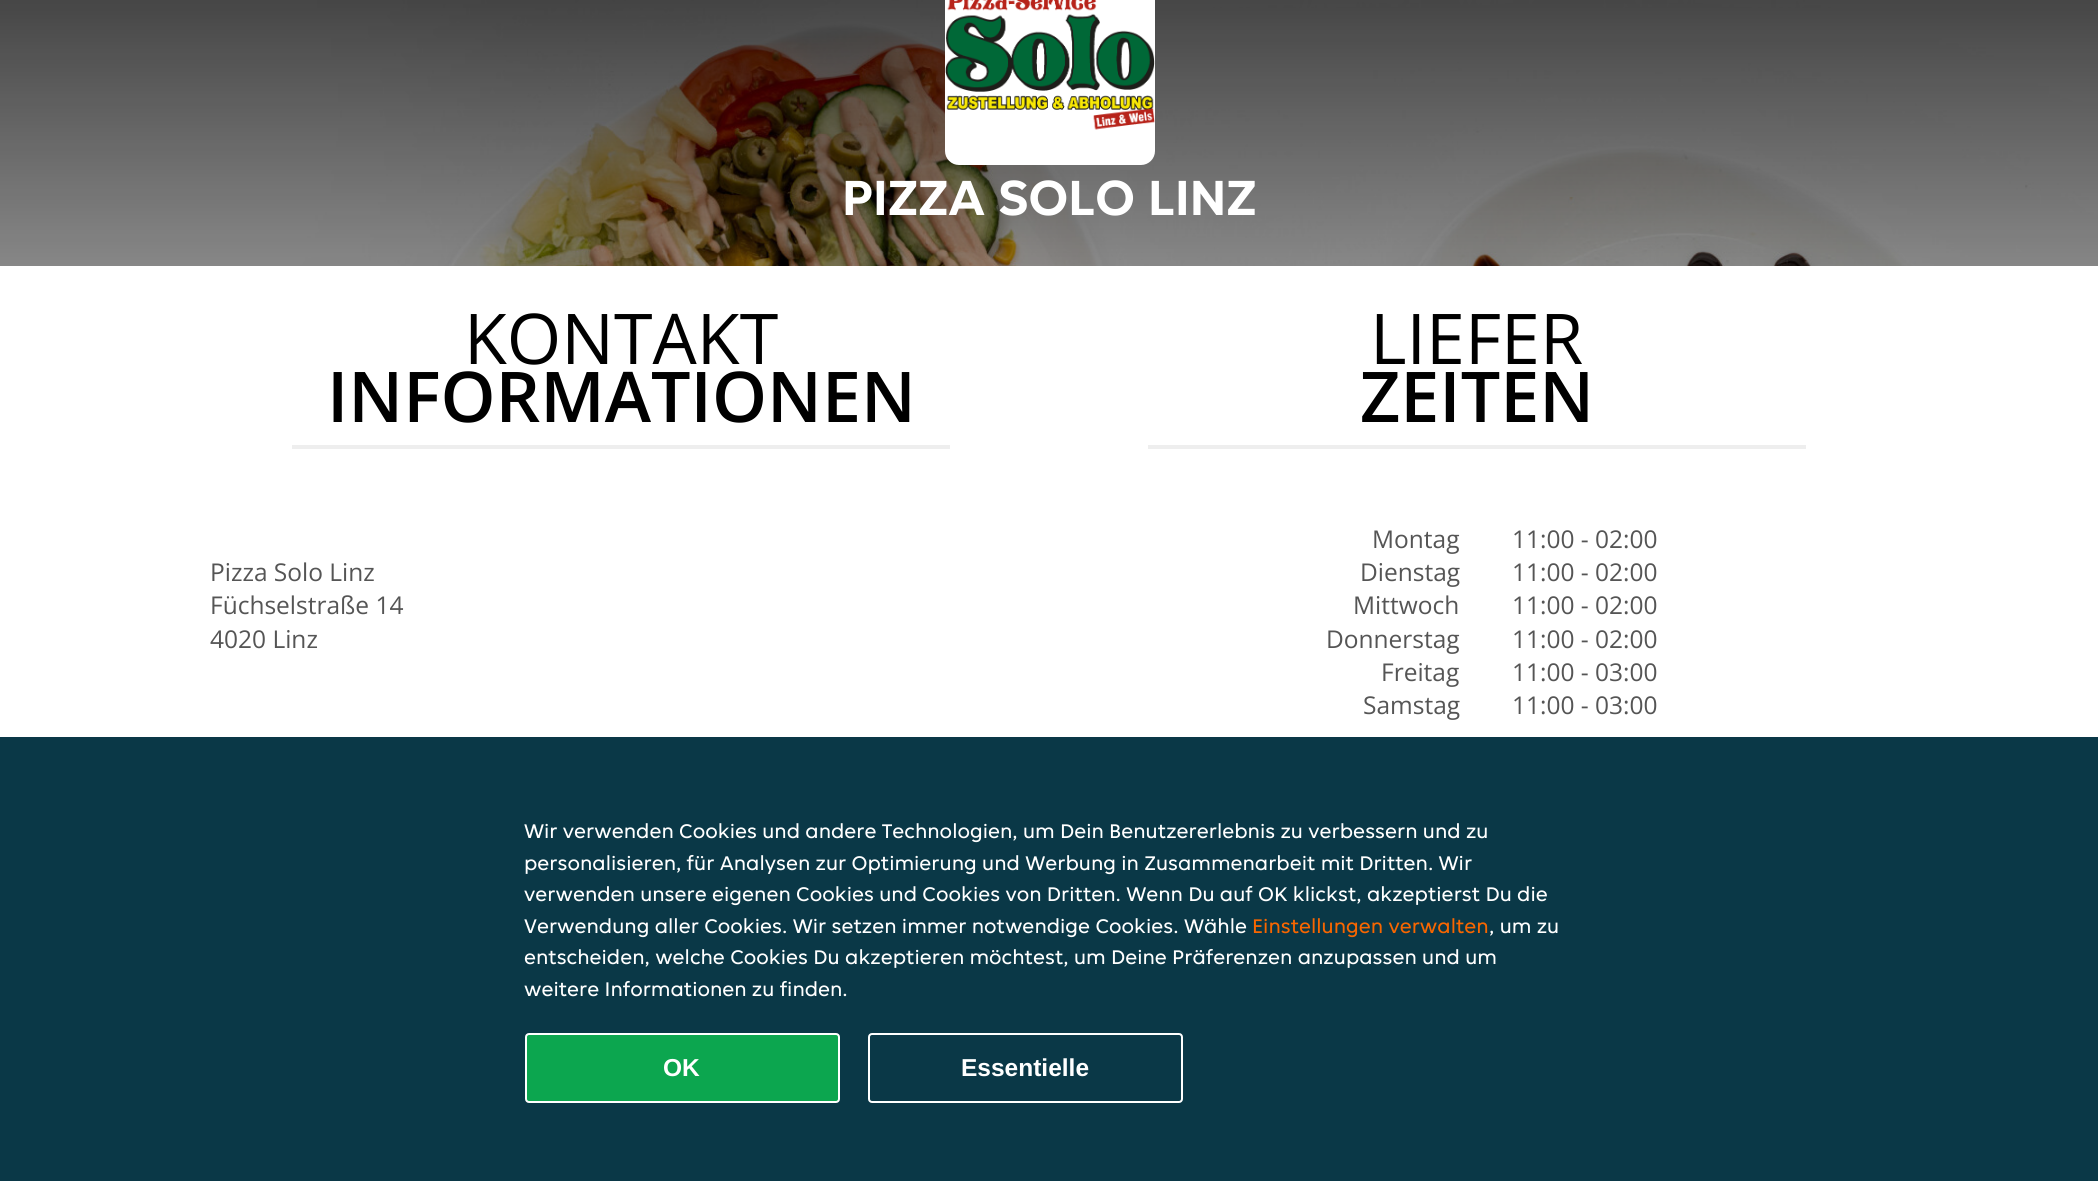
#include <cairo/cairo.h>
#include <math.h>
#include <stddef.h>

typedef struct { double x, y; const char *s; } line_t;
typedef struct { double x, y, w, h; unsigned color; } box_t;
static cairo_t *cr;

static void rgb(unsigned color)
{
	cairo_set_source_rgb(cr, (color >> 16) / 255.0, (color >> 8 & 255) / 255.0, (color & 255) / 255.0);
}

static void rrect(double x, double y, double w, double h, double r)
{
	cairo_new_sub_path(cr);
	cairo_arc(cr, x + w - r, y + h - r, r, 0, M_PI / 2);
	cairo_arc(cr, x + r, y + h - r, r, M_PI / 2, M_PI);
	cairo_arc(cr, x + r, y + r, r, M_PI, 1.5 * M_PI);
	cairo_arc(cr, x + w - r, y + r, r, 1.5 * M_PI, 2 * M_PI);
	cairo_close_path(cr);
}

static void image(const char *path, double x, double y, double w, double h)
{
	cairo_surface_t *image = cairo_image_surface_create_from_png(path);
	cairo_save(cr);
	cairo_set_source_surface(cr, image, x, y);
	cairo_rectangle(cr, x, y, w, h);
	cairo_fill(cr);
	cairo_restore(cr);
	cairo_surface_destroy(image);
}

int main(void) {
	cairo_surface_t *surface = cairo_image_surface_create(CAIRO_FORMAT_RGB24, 2098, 1181);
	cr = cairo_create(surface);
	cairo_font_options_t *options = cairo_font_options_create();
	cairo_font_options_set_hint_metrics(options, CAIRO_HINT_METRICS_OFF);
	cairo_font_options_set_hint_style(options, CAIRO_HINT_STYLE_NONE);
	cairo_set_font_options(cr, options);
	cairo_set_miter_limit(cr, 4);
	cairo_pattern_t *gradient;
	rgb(0xffffff);
	cairo_paint(cr);
	image("img/1.png", 0, 0, 2098, 266);
	gradient = cairo_pattern_create_linear(1049, 0, 1049, 875);
	cairo_pattern_add_color_stop_rgba(gradient, 0, 0, 0, 0, 0.7);
	cairo_pattern_add_color_stop_rgba(gradient, 0.33, 0, 0, 0, 0.4);
	cairo_pattern_add_color_stop_rgba(gradient, 0.67, 0, 0, 0, 0.2);
	cairo_pattern_add_color_stop_rgba(gradient, 1, 0, 0, 0, 0);
	cairo_set_source(cr, gradient);
	cairo_pattern_destroy(gradient);
	cairo_rectangle(cr, 0, 0, 2098, 266);
	cairo_fill(cr);
	rgb(0xffffff);
	rrect(945, -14, 210, 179, 14);
	cairo_fill(cr);
	image("img/2.png", 945, 0, 210, 130);
	{
		static const box_t items[] = {
			{292, 445, 658, 4, 0xeeeeee},
			{1148, 445, 658, 4, 0xeeeeee},
			{0, 737, 2098, 444, 0x0a3847},
		};
		for (size_t i = 0; i < sizeof items / sizeof *items; i++) {
			rgb(items[i].color);
			cairo_rectangle(cr, items[i].x, items[i].y, items[i].w, items[i].h);
			cairo_fill(cr);
		}
	}
	rgb(0x0ca64f);
	rrect(526, 1034, 313, 68, 3);
	cairo_fill_preserve(cr);
	rgb(0xffffff);
	cairo_stroke(cr);
	rrect(869, 1034, 313, 68, 3);
	cairo_stroke(cr);
	cairo_select_font_face(cr, "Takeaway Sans", CAIRO_FONT_SLANT_NORMAL, CAIRO_FONT_WEIGHT_BOLD);
	cairo_set_font_size(cr, 52.5);
	cairo_move_to(cr, 842, 215);
	cairo_show_text(cr, "PIZZA SOLO LINZ");
	cairo_select_font_face(cr, "Open Sans", CAIRO_FONT_SLANT_NORMAL, CAIRO_FONT_WEIGHT_NORMAL);
	cairo_set_font_size(cr, 70);
	rgb(0x000000);
	cairo_move_to(cr, 464, 364);
	cairo_show_text(cr, "KONTAKT");
	cairo_select_font_face(cr, "Open Sans SemiBold", CAIRO_FONT_SLANT_NORMAL, CAIRO_FONT_WEIGHT_NORMAL);
	cairo_move_to(cr, 327, 422);
	cairo_show_text(cr, "INFORMATIONEN");
	cairo_select_font_face(cr, "Open Sans", CAIRO_FONT_SLANT_NORMAL, CAIRO_FONT_WEIGHT_NORMAL);
	cairo_set_font_size(cr, 24.5);
	rgb(0x555555);
	{
		static const line_t items[] = {
			{210, 581, "Pizza Solo Linz"},
			{210, 614, "Füchselstraße 14"},
			{210, 648, "4020 Linz"},
		};
		for (size_t i = 0; i < sizeof items / sizeof *items; i++) {
			cairo_move_to(cr, items[i].x, items[i].y);
			cairo_show_text(cr, items[i].s);
		}
	}
	cairo_set_font_size(cr, 70);
	rgb(0x000000);
	cairo_move_to(cr, 1370, 364);
	cairo_show_text(cr, "LIEFER");
	cairo_select_font_face(cr, "Open Sans SemiBold", CAIRO_FONT_SLANT_NORMAL, CAIRO_FONT_WEIGHT_NORMAL);
	cairo_move_to(cr, 1360, 422);
	cairo_show_text(cr, "ZEITEN");
	cairo_select_font_face(cr, "Open Sans", CAIRO_FONT_SLANT_NORMAL, CAIRO_FONT_WEIGHT_NORMAL);
	cairo_set_font_size(cr, 24.5);
	rgb(0x555555);
	{
		static const line_t items[] = {
			{1372, 548, "Montag"},
			{1512, 548, "11:00 - 02:00"},
			{1360, 581, "Dienstag"},
			{1512, 581, "11:00 - 02:00"},
			{1353, 614, "Mittwoch"},
			{1512, 614, "11:00 - 02:00"},
			{1326, 648, "Donnerstag"},
			{1512, 648, "11:00 - 02:00"},
			{1381, 681, "Freitag"},
			{1512, 681, "11:00 - 03:00"},
			{1363, 714, "Samstag"},
			{1512, 714, "11:00 - 03:00"},
		};
		for (size_t i = 0; i < sizeof items / sizeof *items; i++) {
			cairo_move_to(cr, items[i].x, items[i].y);
			cairo_show_text(cr, items[i].s);
		}
	}
	cairo_select_font_face(cr, "Takeaway Sans", CAIRO_FONT_SLANT_NORMAL, CAIRO_FONT_WEIGHT_NORMAL);
	cairo_set_font_size(cr, 21);
	rgb(0xffffff);
	{
		static const line_t items[] = {
			{524, 838, "Wir verwenden Cookies und andere Technologien, um Dein Benutzererlebnis zu verbessern und zu"},
			{524, 870, "personalisieren, für Analysen zur Optimierung und Werbung in Zusammenarbeit mit Dritten. Wir"},
			{524, 901, "verwenden unsere eigenen Cookies und Cookies von Dritten. Wenn Du auf OK klickst, akzeptierst Du die"},
			{524, 933, "Verwendung aller Cookies. Wir setzen immer notwendige Cookies. Wähle"},
		};
		for (size_t i = 0; i < sizeof items / sizeof *items; i++) {
			cairo_move_to(cr, items[i].x, items[i].y);
			cairo_show_text(cr, items[i].s);
		}
	}
	rgb(0xf86600);
	cairo_move_to(cr, 1252, 933);
	cairo_show_text(cr, "Einstellungen verwalten");
	rgb(0xffffff);
	{
		static const line_t items[] = {
			{1489, 933, ", um zu"},
			{524, 964, "entscheiden, welche Cookies Du akzeptieren möchtest, um Deine Präferenzen anzupassen und um"},
			{524, 996, "weitere Informationen zu finden."},
		};
		for (size_t i = 0; i < sizeof items / sizeof *items; i++) {
			cairo_move_to(cr, items[i].x, items[i].y);
			cairo_show_text(cr, items[i].s);
		}
	}
	cairo_select_font_face(cr, "Liberation Sans", CAIRO_FONT_SLANT_NORMAL, CAIRO_FONT_WEIGHT_BOLD);
	cairo_set_font_size(cr, 24.5);
	cairo_move_to(cr, 663, 1076);
	cairo_show_text(cr, "OK");
	cairo_move_to(cr, 961, 1076);
	cairo_show_text(cr, "Essentielle");
	cairo_surface_write_to_png(surface, "page.png");
	cairo_font_options_destroy(options);
	cairo_destroy(cr);
	cairo_surface_destroy(surface);
	return 0;
}
